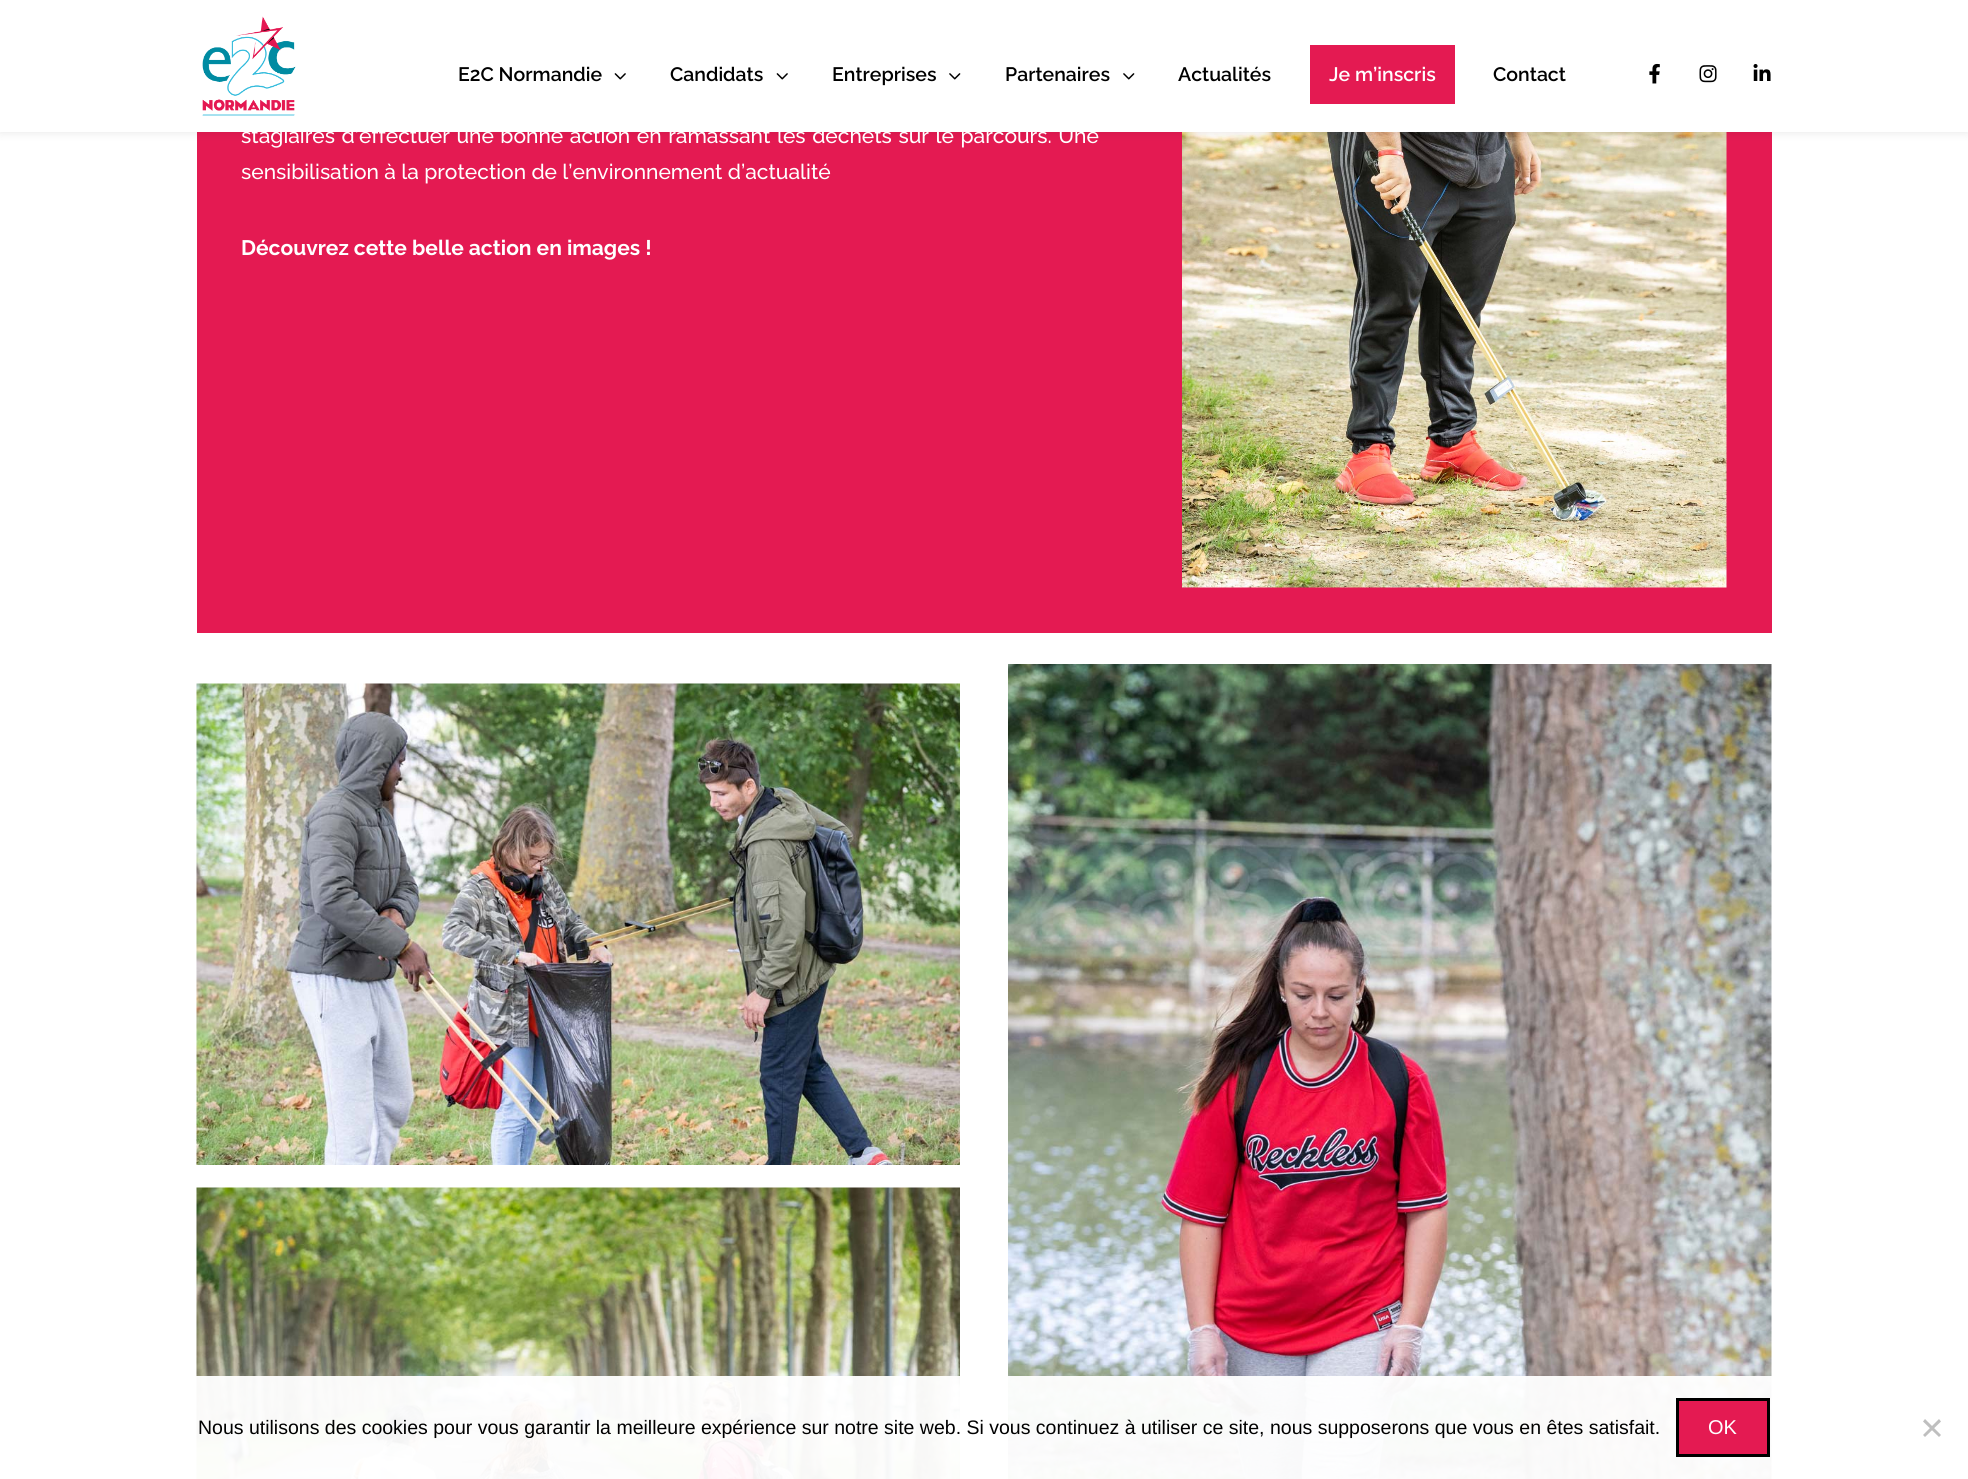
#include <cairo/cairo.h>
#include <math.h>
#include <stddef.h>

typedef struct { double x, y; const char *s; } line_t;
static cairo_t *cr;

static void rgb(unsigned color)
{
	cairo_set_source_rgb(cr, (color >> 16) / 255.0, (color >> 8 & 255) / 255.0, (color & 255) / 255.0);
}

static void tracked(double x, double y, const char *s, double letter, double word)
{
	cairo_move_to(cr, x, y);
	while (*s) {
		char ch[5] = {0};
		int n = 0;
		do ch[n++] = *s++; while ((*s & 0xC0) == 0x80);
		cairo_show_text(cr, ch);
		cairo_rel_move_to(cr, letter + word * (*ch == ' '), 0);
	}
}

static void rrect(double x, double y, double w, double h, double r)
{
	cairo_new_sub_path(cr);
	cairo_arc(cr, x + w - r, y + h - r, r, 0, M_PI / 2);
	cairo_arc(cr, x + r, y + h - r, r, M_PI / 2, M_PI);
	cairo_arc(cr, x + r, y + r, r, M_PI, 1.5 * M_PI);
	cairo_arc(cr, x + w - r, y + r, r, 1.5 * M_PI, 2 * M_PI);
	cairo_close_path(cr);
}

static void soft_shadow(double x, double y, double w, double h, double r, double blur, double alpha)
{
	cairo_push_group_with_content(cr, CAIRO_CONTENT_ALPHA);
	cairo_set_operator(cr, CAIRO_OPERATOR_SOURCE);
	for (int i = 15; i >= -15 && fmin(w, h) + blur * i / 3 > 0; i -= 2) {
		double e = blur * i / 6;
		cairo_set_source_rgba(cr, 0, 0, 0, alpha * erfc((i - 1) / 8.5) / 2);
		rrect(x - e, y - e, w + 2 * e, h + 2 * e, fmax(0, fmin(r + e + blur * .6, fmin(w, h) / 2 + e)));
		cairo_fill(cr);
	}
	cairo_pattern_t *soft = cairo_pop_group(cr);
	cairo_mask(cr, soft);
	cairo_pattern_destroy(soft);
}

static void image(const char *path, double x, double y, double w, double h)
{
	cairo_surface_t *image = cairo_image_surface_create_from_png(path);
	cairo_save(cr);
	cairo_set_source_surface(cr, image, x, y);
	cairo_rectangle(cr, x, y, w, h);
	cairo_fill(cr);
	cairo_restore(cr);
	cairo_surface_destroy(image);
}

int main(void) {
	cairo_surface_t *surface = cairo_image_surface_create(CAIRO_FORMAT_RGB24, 1968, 1479);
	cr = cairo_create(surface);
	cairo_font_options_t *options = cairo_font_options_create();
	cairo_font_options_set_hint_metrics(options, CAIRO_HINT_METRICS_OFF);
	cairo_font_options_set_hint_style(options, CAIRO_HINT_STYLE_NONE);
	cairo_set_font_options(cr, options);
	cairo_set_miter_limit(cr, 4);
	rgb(0xffffff);
	cairo_paint(cr);
	rgb(0xe41a52);
	cairo_rectangle(cr, 197, 132, 1575, 501);
	cairo_fill(cr);
	image("img/7.png", 1182, 132, 545, 456);
	rgb(0x000000);
	soft_shadow(0, 0, 1968, 132, 0, 5, 0.1);
	rgb(0xffffff);
	cairo_rectangle(cr, 0, 0, 1968, 132);
	cairo_fill(cr);
	image("img/1.png", 202, 16, 94, 100);
	image("img/2.png", 614, 73, 12, 7);
	image("img/2.png", 776, 73, 12, 7);
	image("img/3.png", 949, 73, 12, 7);
	image("img/3.png", 1123, 73, 12, 7);
	rgb(0xe41a52);
	cairo_rectangle(cr, 1310, 45, 145, 59);
	cairo_fill(cr);
	image("img/4.png", 1649, 63, 11, 21);
	image("img/5.png", 1699, 65, 18, 18);
	image("img/6.png", 1753, 64, 18, 17);
	image("img/8.png", 196, 683, 764, 482);
	image("img/9.png", 196, 1187, 764, 292);
	image("img/10.png", 1008, 664, 764, 815);
	cairo_set_source_rgba(cr, 1, 1, 1, 0.95);
	cairo_rectangle(cr, 196, 1376, 1576, 103);
	cairo_fill(cr);
	rgb(0xe41a52);
	cairo_rectangle(cr, 1677.5, 1399.5, 91, 56);
	cairo_fill_preserve(cr);
	rgb(0x000000);
	cairo_set_line_width(cr, 3);
	cairo_stroke(cr);
	rgb(0xbfbfbf);
	cairo_new_path(cr);
	cairo_move_to(cr, 1939, 1419);
	cairo_line_to(cr, 1941, 1421.5);
	cairo_line_to(cr, 1925, 1437);
	cairo_line_to(cr, 1923, 1435);
	cairo_close_path(cr);
	cairo_fill(cr);
	cairo_new_path(cr);
	cairo_move_to(cr, 1923, 1421.5);
	cairo_line_to(cr, 1925, 1419);
	cairo_line_to(cr, 1941, 1435);
	cairo_line_to(cr, 1939, 1437);
	cairo_close_path(cr);
	cairo_fill(cr);
	cairo_select_font_face(cr, "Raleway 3 Thin", CAIRO_FONT_SLANT_NORMAL, CAIRO_FONT_WEIGHT_NORMAL);
	cairo_set_font_size(cr, 19.5);
	rgb(0x000000);
	{
		static const line_t items[] = {
			{458, 81, "E2C Normandie"},
			{670, 81, "Candidats"},
			{832, 81, "Entreprises"},
			{1005, 81, "Partenaires"},
			{1178, 81, "Actualités"},
		};
		for (size_t i = 0; i < sizeof items / sizeof *items; i++) {
			cairo_move_to(cr, items[i].x, items[i].y);
			cairo_show_text(cr, items[i].s);
		}
	}
	rgb(0xffffff);
	cairo_move_to(cr, 1329, 81);
	cairo_show_text(cr, "Je m’inscris");
	rgb(0x000000);
	cairo_move_to(cr, 1493, 81);
	cairo_show_text(cr, "Contact");
	cairo_select_font_face(cr, "Raleway Thin", CAIRO_FONT_SLANT_NORMAL, CAIRO_FONT_WEIGHT_NORMAL);
	cairo_set_font_size(cr, 21);
	rgb(0xffffff);
	tracked(241, 143, "stagiaires d’effectuer une bonne action en ramassant les déchets sur le parcours. Une", 0, 1.25);
	cairo_move_to(cr, 241, 179);
	cairo_show_text(cr, "sensibilisation à la protection de l’environnement d’actualité");
	cairo_select_font_face(cr, "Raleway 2 Thin", CAIRO_FONT_SLANT_NORMAL, CAIRO_FONT_WEIGHT_NORMAL);
	cairo_move_to(cr, 241, 255);
	cairo_show_text(cr, "Découvrez cette belle action en images !");
	cairo_select_font_face(cr, "Liberation Sans", CAIRO_FONT_SLANT_NORMAL, CAIRO_FONT_WEIGHT_NORMAL);
	cairo_set_font_size(cr, 19.5);
	rgb(0x000000);
	cairo_move_to(cr, 198, 1434);
	cairo_show_text(cr, "Nous utilisons des cookies pour vous garantir la meilleure expérience sur notre site web. Si vous continuez à utiliser ce site, nous supposerons que vous en êtes satisfait.");
	cairo_set_font_size(cr, 20);
	rgb(0xffffff);
	cairo_move_to(cr, 1708, 1434);
	cairo_show_text(cr, "OK");
	cairo_surface_write_to_png(surface, "page.png");
	cairo_font_options_destroy(options);
	cairo_destroy(cr);
	cairo_surface_destroy(surface);
	return 0;
}
